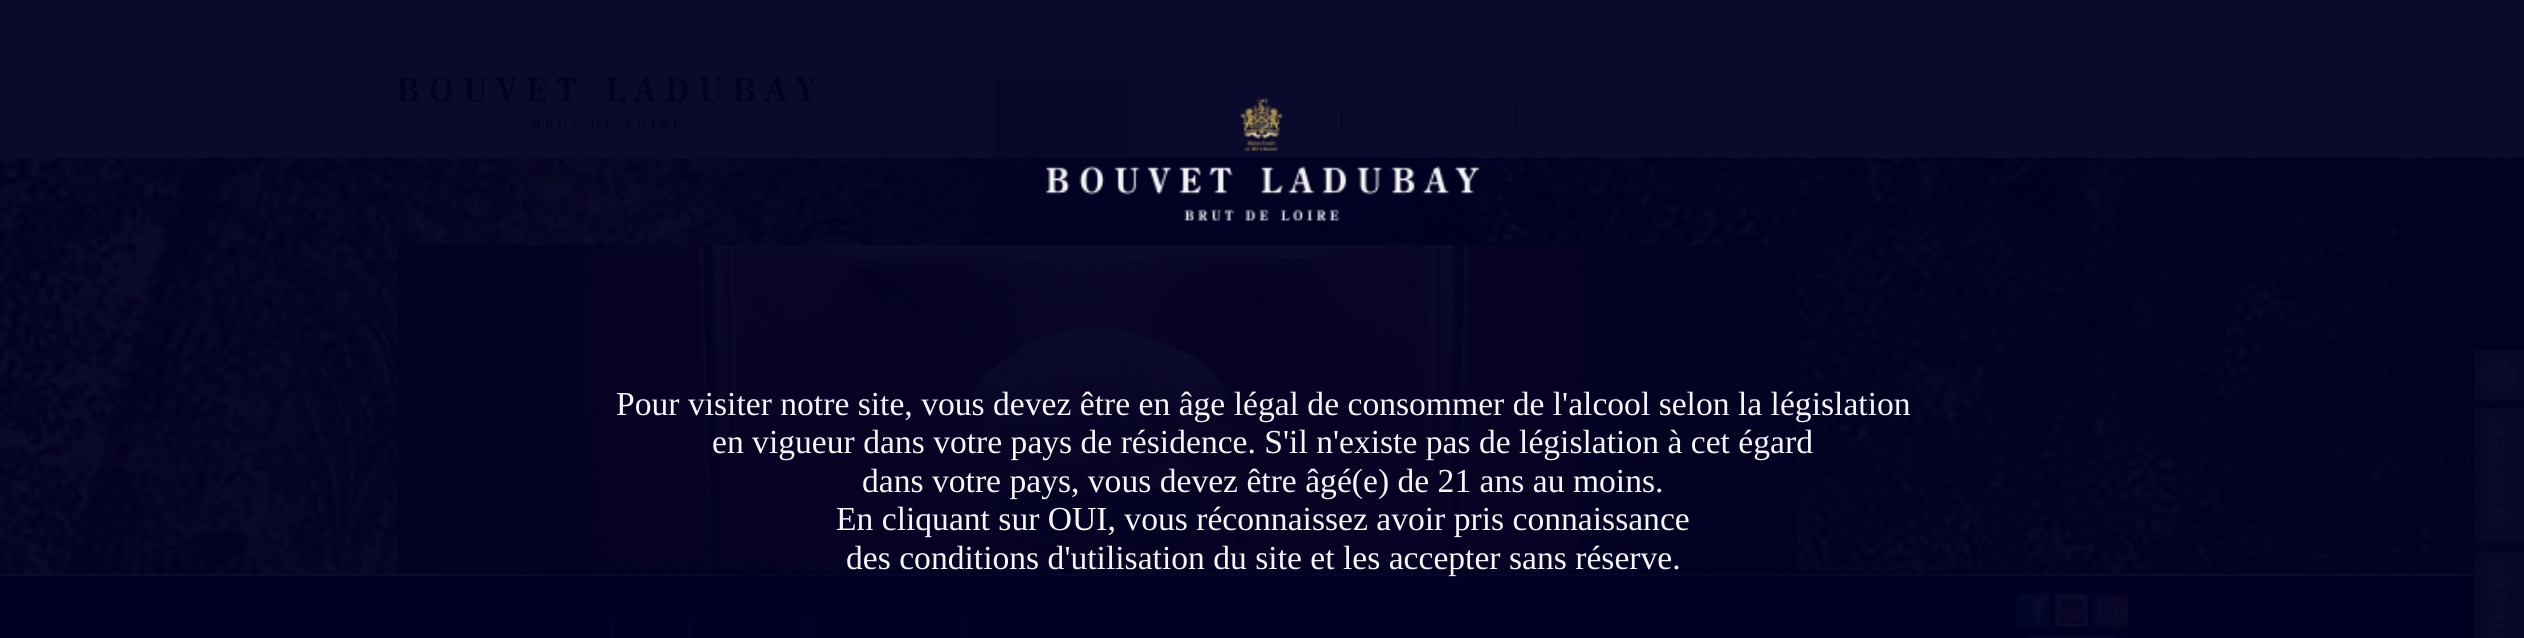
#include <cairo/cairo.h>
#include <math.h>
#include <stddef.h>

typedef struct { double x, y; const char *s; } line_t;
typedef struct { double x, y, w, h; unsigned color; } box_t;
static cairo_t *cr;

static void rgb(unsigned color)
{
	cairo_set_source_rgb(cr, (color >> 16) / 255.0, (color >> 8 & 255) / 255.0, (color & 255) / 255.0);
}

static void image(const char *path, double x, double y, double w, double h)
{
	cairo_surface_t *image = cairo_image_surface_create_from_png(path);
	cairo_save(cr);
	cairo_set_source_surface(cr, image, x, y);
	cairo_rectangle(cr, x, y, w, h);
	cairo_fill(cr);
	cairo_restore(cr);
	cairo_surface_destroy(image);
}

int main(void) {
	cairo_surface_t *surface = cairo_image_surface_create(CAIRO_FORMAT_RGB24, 2524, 638);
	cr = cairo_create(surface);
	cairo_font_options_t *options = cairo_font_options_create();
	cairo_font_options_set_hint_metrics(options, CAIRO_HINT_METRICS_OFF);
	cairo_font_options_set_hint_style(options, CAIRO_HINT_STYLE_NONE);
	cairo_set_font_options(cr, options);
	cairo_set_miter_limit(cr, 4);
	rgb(0xffffff);
	cairo_paint(cr);
	image("img/1.png", 0, 158, 2524, 416);
	image("img/2.png", 397, 245, 1401, 329);
	rgb(0x0a0a2d);
	cairo_rectangle(cr, 0, 0, 2524, 158);
	cairo_fill(cr);
	image("img/3.png", 397, 9, 421, 120);
	rgb(0x080726);
	cairo_rectangle(cr, 2165, 49, 98, 2);
	cairo_fill(cr);
	cairo_rectangle(cr, 994, 79, 133, 79);
	cairo_fill(cr);
	image("img/4.png", 1340, 105, 3, 27);
	image("img/4.png", 1515, 105, 3, 27);
	image("img/5.png", 1046, 97, 434, 124);
	image("img/6.png", 2475, 350, 49, 193);
	image("img/7.png", 2475, 551, 49, 87);
	rgb(0x000024);
	cairo_rectangle(cr, 0, 576, 2475, 62);
	cairo_fill(cr);
	rgb(0x0a0a2d);
	cairo_rectangle(cr, 0, 574, 2475, 2);
	cairo_fill(cr);
	image("img/8.png", 416, 562, 1695, 14);
	{
		static const box_t items[] = {
			{611, 623, 2, 15, 0x040428},
			{688, 623, 2, 15, 0x040428},
			{807, 623, 2, 15, 0x040428},
			{964, 623, 2, 15, 0x040428},
		};
		for (size_t i = 0; i < sizeof items / sizeof *items; i++) {
			rgb(items[i].color);
			cairo_rectangle(cr, items[i].x, items[i].y, items[i].w, items[i].h);
			cairo_fill(cr);
		}
	}
	image("img/9.png", 2016, 593, 35, 36);
	image("img/10.png", 2054, 593, 36, 35);
	image("img/11.png", 2093, 593, 35, 36);
	image("img/12.png", 2028, 637, 88, 1);
	cairo_select_font_face(cr, "Liberation Serif", CAIRO_FONT_SLANT_NORMAL, CAIRO_FONT_WEIGHT_NORMAL);
	cairo_set_font_size(cr, 33.6);
	rgb(0xf5f5f6);
	{
		static const line_t items[] = {
			{616, 415, "Pour visiter notre site, vous devez être en âge légal de consommer de l'alcool selon la législation"},
			{712, 453, "en vigueur dans votre pays de résidence. S'il n'existe pas de législation à cet égard"},
			{862, 492, "dans votre pays, vous devez être âgé(e) de 21 ans au moins."},
			{836, 530, "En cliquant sur OUI, vous réconnaissez avoir pris connaissance"},
			{846, 569, "des conditions d'utilisation du site et les accepter sans réserve."},
		};
		for (size_t i = 0; i < sizeof items / sizeof *items; i++) {
			cairo_move_to(cr, items[i].x, items[i].y);
			cairo_show_text(cr, items[i].s);
		}
	}
	cairo_surface_write_to_png(surface, "page.png");
	cairo_font_options_destroy(options);
	cairo_destroy(cr);
	cairo_surface_destroy(surface);
	return 0;
}
